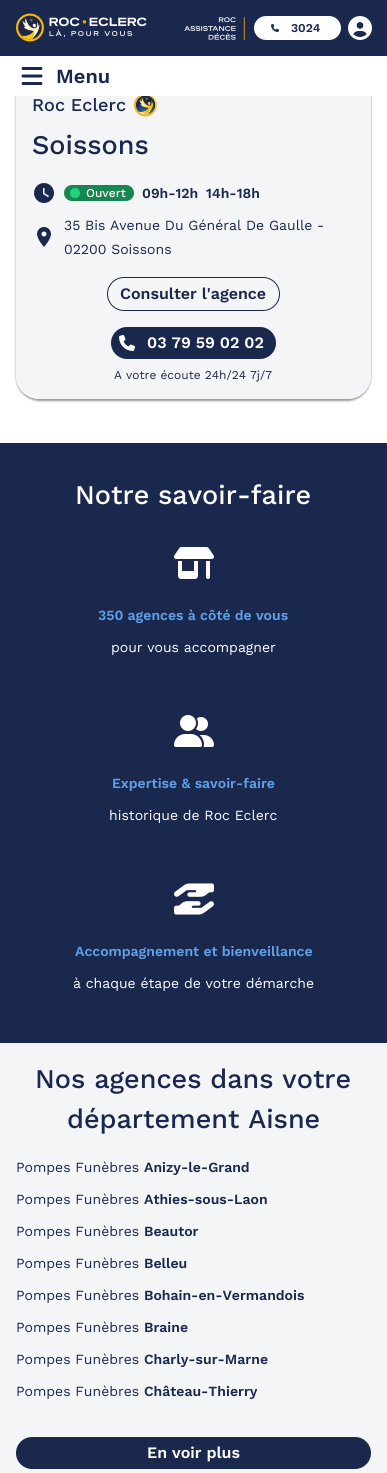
#include <cairo/cairo.h>
#include <math.h>
#include <stddef.h>

static cairo_t *cr;

static void rgb(unsigned color)
{
	cairo_set_source_rgb(cr, (color >> 16) / 255.0, (color >> 8 & 255) / 255.0, (color & 255) / 255.0);
}

static void rrect(double x, double y, double w, double h, double r)
{
	cairo_new_sub_path(cr);
	cairo_arc(cr, x + w - r, y + h - r, r, 0, M_PI / 2);
	cairo_arc(cr, x + r, y + h - r, r, M_PI / 2, M_PI);
	cairo_arc(cr, x + r, y + r, r, M_PI, 1.5 * M_PI);
	cairo_arc(cr, x + w - r, y + r, r, 1.5 * M_PI, 2 * M_PI);
	cairo_close_path(cr);
}

static void soft_shadow(double x, double y, double w, double h, double r, double blur, double alpha)
{
	cairo_push_group_with_content(cr, CAIRO_CONTENT_ALPHA);
	cairo_set_operator(cr, CAIRO_OPERATOR_SOURCE);
	for (int i = 15; i >= -15 && fmin(w, h) + blur * i / 3 > 0; i -= 2) {
		double e = blur * i / 6;
		cairo_set_source_rgba(cr, 0, 0, 0, alpha * erfc((i - 1) / 8.5) / 2);
		rrect(x - e, y - e, w + 2 * e, h + 2 * e, fmax(0, fmin(r + e + blur * .6, fmin(w, h) / 2 + e)));
		cairo_fill(cr);
	}
	cairo_pattern_t *soft = cairo_pop_group(cr);
	cairo_mask(cr, soft);
	cairo_pattern_destroy(soft);
}

static void image(const char *path, double x, double y, double w, double h)
{
	cairo_surface_t *image = cairo_image_surface_create_from_png(path);
	cairo_save(cr);
	cairo_set_source_surface(cr, image, x, y);
	cairo_rectangle(cr, x, y, w, h);
	cairo_fill(cr);
	cairo_restore(cr);
	cairo_surface_destroy(image);
}

int main(void) {
	cairo_surface_t *surface = cairo_image_surface_create(CAIRO_FORMAT_RGB24, 387, 1473);
	cr = cairo_create(surface);
	cairo_font_options_t *options = cairo_font_options_create();
	cairo_font_options_set_hint_metrics(options, CAIRO_HINT_METRICS_OFF);
	cairo_font_options_set_hint_style(options, CAIRO_HINT_STYLE_NONE);
	cairo_set_font_options(cr, options);
	cairo_set_miter_limit(cr, 4);
	rgb(0x1b284e);
	cairo_paint(cr);
	rgb(0xffffff);
	cairo_rectangle(cr, 0, 96, 387, 347);
	cairo_fill(cr);
	cairo_save(cr);
	cairo_set_fill_rule(cr, CAIRO_FILL_RULE_EVEN_ODD);
	cairo_new_path(cr);
	cairo_move_to(cr, 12, 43);
	cairo_line_to(cr, 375, 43);
	cairo_line_to(cr, 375, 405);
	cairo_line_to(cr, 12, 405);
	cairo_close_path(cr);
	cairo_move_to(cr, 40, 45);
	cairo_line_to(cr, 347, 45);
	cairo_curve_to(cr, 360.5, 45, 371, 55.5, 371, 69);
	cairo_line_to(cr, 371, 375);
	cairo_curve_to(cr, 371, 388.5, 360.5, 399, 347, 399);
	cairo_line_to(cr, 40, 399);
	cairo_curve_to(cr, 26.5, 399, 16, 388.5, 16, 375);
	cairo_line_to(cr, 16, 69);
	cairo_curve_to(cr, 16, 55.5, 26.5, 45, 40, 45);
	cairo_close_path(cr);
	cairo_clip(cr);
	rgb(0x000000);
	soft_shadow(16, 47, 355, 354, 24, 1, 0.4);
	cairo_restore(cr);
	rgb(0xf4f5f7);
	rrect(16, 45, 355, 354, 24);
	cairo_fill(cr);
	rgb(0x1b284e);
	cairo_rectangle(cr, 19, 45, 349, 11);
	cairo_fill(cr);
	image("img/1.png", 16, 13, 131, 29);
	image("img/2.png", 184, 17, 61, 23);
	rgb(0xffffff);
	rrect(254, 16, 87, 24, 12);
	cairo_fill(cr);
	image("img/3.png", 271, 24, 8, 8);
	image("img/4.png", 348, 16, 24, 24);
	cairo_rectangle(cr, 0, 56, 387, 40);
	cairo_fill(cr);
	image("img/5.png", 21, 67, 22, 18);
	image("img/6.png", 134, 96, 24, 21);
	image("img/7.png", 34, 183, 20, 20);
	rgb(0x188651);
	rrect(64, 185, 70, 16, 8);
	cairo_fill(cr);
	rgb(0x25d07d);
	cairo_arc(cr, 75, 193, 5, 0, 2 * M_PI);
	cairo_fill(cr);
	image("img/8.png", 37, 227, 14, 20);
	rrect(107.5, 277.5, 172, 33, 16.5);
	rgb(0x1b284e);
	cairo_set_line_width(cr, 1);
	cairo_stroke(cr);
	rrect(111, 327, 165, 32, 16);
	cairo_fill(cr);
	image("img/9.png", 119, 335, 16, 16);
	image("img/10.png", 174, 547, 40, 32);
	image("img/11.png", 174, 715, 40, 32);
	image("img/12.png", 174, 883, 40, 32);
	rgb(0xf4f5f7);
	cairo_rectangle(cr, 0, 1043, 387, 430);
	cairo_fill(cr);
	rgb(0x1b284e);
	rrect(16, 1437, 355, 32, 16);
	cairo_fill(cr);
	cairo_select_font_face(cr, "Work Sans SemiBold", CAIRO_FONT_SLANT_NORMAL, CAIRO_FONT_WEIGHT_NORMAL);
	cairo_set_font_size(cr, 12);
	cairo_move_to(cr, 291, 32);
	cairo_show_text(cr, "3024");
	cairo_set_font_size(cr, 20);
	cairo_move_to(cr, 56, 83);
	cairo_show_text(cr, "Menu");
	cairo_select_font_face(cr, "Work Sans Medium", CAIRO_FONT_SLANT_NORMAL, CAIRO_FONT_WEIGHT_NORMAL);
	cairo_set_font_size(cr, 18);
	cairo_move_to(cr, 32, 111);
	cairo_show_text(cr, "Roc Eclerc");
	cairo_set_font_size(cr, 27);
	cairo_move_to(cr, 32, 154);
	cairo_show_text(cr, "Soissons");
	cairo_set_font_size(cr, 12);
	rgb(0xffffff);
	cairo_move_to(cr, 86, 197);
	cairo_show_text(cr, "Ouvert");
	cairo_select_font_face(cr, "Work Sans SemiBold", CAIRO_FONT_SLANT_NORMAL, CAIRO_FONT_WEIGHT_NORMAL);
	cairo_set_font_size(cr, 14);
	rgb(0x1b284e);
	cairo_move_to(cr, 142, 198);
	cairo_show_text(cr, "09h-12h");
	cairo_move_to(cr, 206, 198);
	cairo_show_text(cr, "14h-18h");
	cairo_select_font_face(cr, "Work Sans", CAIRO_FONT_SLANT_NORMAL, CAIRO_FONT_WEIGHT_NORMAL);
	cairo_move_to(cr, 64, 230);
	cairo_show_text(cr, "35 Bis Avenue Du Général De Gaulle -");
	cairo_move_to(cr, 64, 254);
	cairo_show_text(cr, "02200 Soissons");
	cairo_select_font_face(cr, "Work Sans SemiBold", CAIRO_FONT_SLANT_NORMAL, CAIRO_FONT_WEIGHT_NORMAL);
	cairo_set_font_size(cr, 16);
	cairo_move_to(cr, 120, 299);
	cairo_show_text(cr, "Consulter l'agence");
	rgb(0xffffff);
	cairo_move_to(cr, 147, 348);
	cairo_show_text(cr, "03 79 59 02 02");
	cairo_select_font_face(cr, "Work Sans", CAIRO_FONT_SLANT_NORMAL, CAIRO_FONT_WEIGHT_NORMAL);
	cairo_set_font_size(cr, 12);
	rgb(0x1b284e);
	cairo_move_to(cr, 114, 379);
	cairo_show_text(cr, "A votre écoute 24h/24 7j/7");
	cairo_select_font_face(cr, "Work Sans Medium", CAIRO_FONT_SLANT_NORMAL, CAIRO_FONT_WEIGHT_NORMAL);
	cairo_set_font_size(cr, 27);
	rgb(0xffffff);
	cairo_move_to(cr, 75, 504);
	cairo_show_text(cr, "Notre savoir-faire");
	cairo_select_font_face(cr, "Work Sans SemiBold", CAIRO_FONT_SLANT_NORMAL, CAIRO_FONT_WEIGHT_NORMAL);
	cairo_set_font_size(cr, 14);
	rgb(0x5ea1e8);
	cairo_move_to(cr, 98, 620);
	cairo_show_text(cr, "350 agences à côté de vous");
	cairo_select_font_face(cr, "Work Sans", CAIRO_FONT_SLANT_NORMAL, CAIRO_FONT_WEIGHT_NORMAL);
	rgb(0xffffff);
	cairo_move_to(cr, 111, 652);
	cairo_show_text(cr, "pour vous accompagner");
	cairo_select_font_face(cr, "Work Sans SemiBold", CAIRO_FONT_SLANT_NORMAL, CAIRO_FONT_WEIGHT_NORMAL);
	rgb(0x5ea1e8);
	cairo_move_to(cr, 112, 788);
	cairo_show_text(cr, "Expertise & savoir-faire");
	cairo_select_font_face(cr, "Work Sans", CAIRO_FONT_SLANT_NORMAL, CAIRO_FONT_WEIGHT_NORMAL);
	rgb(0xffffff);
	cairo_move_to(cr, 109, 820);
	cairo_show_text(cr, "historique de Roc Eclerc");
	cairo_select_font_face(cr, "Work Sans SemiBold", CAIRO_FONT_SLANT_NORMAL, CAIRO_FONT_WEIGHT_NORMAL);
	rgb(0x5ea1e8);
	cairo_move_to(cr, 75, 956);
	cairo_show_text(cr, "Accompagnement et bienveillance");
	cairo_select_font_face(cr, "Work Sans", CAIRO_FONT_SLANT_NORMAL, CAIRO_FONT_WEIGHT_NORMAL);
	rgb(0xffffff);
	cairo_move_to(cr, 73, 988);
	cairo_show_text(cr, "à chaque étape de votre démarche");
	cairo_select_font_face(cr, "Work Sans Medium", CAIRO_FONT_SLANT_NORMAL, CAIRO_FONT_WEIGHT_NORMAL);
	cairo_set_font_size(cr, 27);
	rgb(0x1b284e);
	cairo_move_to(cr, 35, 1088);
	cairo_show_text(cr, "Nos agences dans votre");
	cairo_move_to(cr, 67, 1128);
	cairo_show_text(cr, "département Aisne");
	cairo_select_font_face(cr, "Work Sans", CAIRO_FONT_SLANT_NORMAL, CAIRO_FONT_WEIGHT_NORMAL);
	cairo_set_font_size(cr, 14);
	cairo_move_to(cr, 16, 1172);
	cairo_show_text(cr, "Pompes Funèbres");
	cairo_select_font_face(cr, "Work Sans SemiBold", CAIRO_FONT_SLANT_NORMAL, CAIRO_FONT_WEIGHT_NORMAL);
	cairo_move_to(cr, 144, 1172);
	cairo_show_text(cr, "Anizy-le-Grand");
	cairo_select_font_face(cr, "Work Sans", CAIRO_FONT_SLANT_NORMAL, CAIRO_FONT_WEIGHT_NORMAL);
	cairo_move_to(cr, 16, 1204);
	cairo_show_text(cr, "Pompes Funèbres");
	cairo_select_font_face(cr, "Work Sans SemiBold", CAIRO_FONT_SLANT_NORMAL, CAIRO_FONT_WEIGHT_NORMAL);
	cairo_move_to(cr, 144, 1204);
	cairo_show_text(cr, "Athies-sous-Laon");
	cairo_select_font_face(cr, "Work Sans", CAIRO_FONT_SLANT_NORMAL, CAIRO_FONT_WEIGHT_NORMAL);
	cairo_move_to(cr, 16, 1236);
	cairo_show_text(cr, "Pompes Funèbres");
	cairo_select_font_face(cr, "Work Sans SemiBold", CAIRO_FONT_SLANT_NORMAL, CAIRO_FONT_WEIGHT_NORMAL);
	cairo_move_to(cr, 144, 1236);
	cairo_show_text(cr, "Beautor");
	cairo_select_font_face(cr, "Work Sans", CAIRO_FONT_SLANT_NORMAL, CAIRO_FONT_WEIGHT_NORMAL);
	cairo_move_to(cr, 16, 1268);
	cairo_show_text(cr, "Pompes Funèbres");
	cairo_select_font_face(cr, "Work Sans SemiBold", CAIRO_FONT_SLANT_NORMAL, CAIRO_FONT_WEIGHT_NORMAL);
	cairo_move_to(cr, 144, 1268);
	cairo_show_text(cr, "Belleu");
	cairo_select_font_face(cr, "Work Sans", CAIRO_FONT_SLANT_NORMAL, CAIRO_FONT_WEIGHT_NORMAL);
	cairo_move_to(cr, 16, 1300);
	cairo_show_text(cr, "Pompes Funèbres");
	cairo_select_font_face(cr, "Work Sans SemiBold", CAIRO_FONT_SLANT_NORMAL, CAIRO_FONT_WEIGHT_NORMAL);
	cairo_move_to(cr, 144, 1300);
	cairo_show_text(cr, "Bohain-en-Vermandois");
	cairo_select_font_face(cr, "Work Sans", CAIRO_FONT_SLANT_NORMAL, CAIRO_FONT_WEIGHT_NORMAL);
	cairo_move_to(cr, 16, 1332);
	cairo_show_text(cr, "Pompes Funèbres");
	cairo_select_font_face(cr, "Work Sans SemiBold", CAIRO_FONT_SLANT_NORMAL, CAIRO_FONT_WEIGHT_NORMAL);
	cairo_move_to(cr, 144, 1332);
	cairo_show_text(cr, "Braine");
	cairo_select_font_face(cr, "Work Sans", CAIRO_FONT_SLANT_NORMAL, CAIRO_FONT_WEIGHT_NORMAL);
	cairo_move_to(cr, 16, 1364);
	cairo_show_text(cr, "Pompes Funèbres");
	cairo_select_font_face(cr, "Work Sans SemiBold", CAIRO_FONT_SLANT_NORMAL, CAIRO_FONT_WEIGHT_NORMAL);
	cairo_move_to(cr, 144, 1364);
	cairo_show_text(cr, "Charly-sur-Marne");
	cairo_select_font_face(cr, "Work Sans", CAIRO_FONT_SLANT_NORMAL, CAIRO_FONT_WEIGHT_NORMAL);
	cairo_move_to(cr, 16, 1396);
	cairo_show_text(cr, "Pompes Funèbres");
	cairo_select_font_face(cr, "Work Sans SemiBold", CAIRO_FONT_SLANT_NORMAL, CAIRO_FONT_WEIGHT_NORMAL);
	cairo_move_to(cr, 144, 1396);
	cairo_show_text(cr, "Château-Thierry");
	cairo_set_font_size(cr, 16);
	rgb(0xffffff);
	cairo_move_to(cr, 147, 1458);
	cairo_show_text(cr, "En voir plus");
	cairo_surface_write_to_png(surface, "page.png");
	cairo_font_options_destroy(options);
	cairo_destroy(cr);
	cairo_surface_destroy(surface);
	return 0;
}
